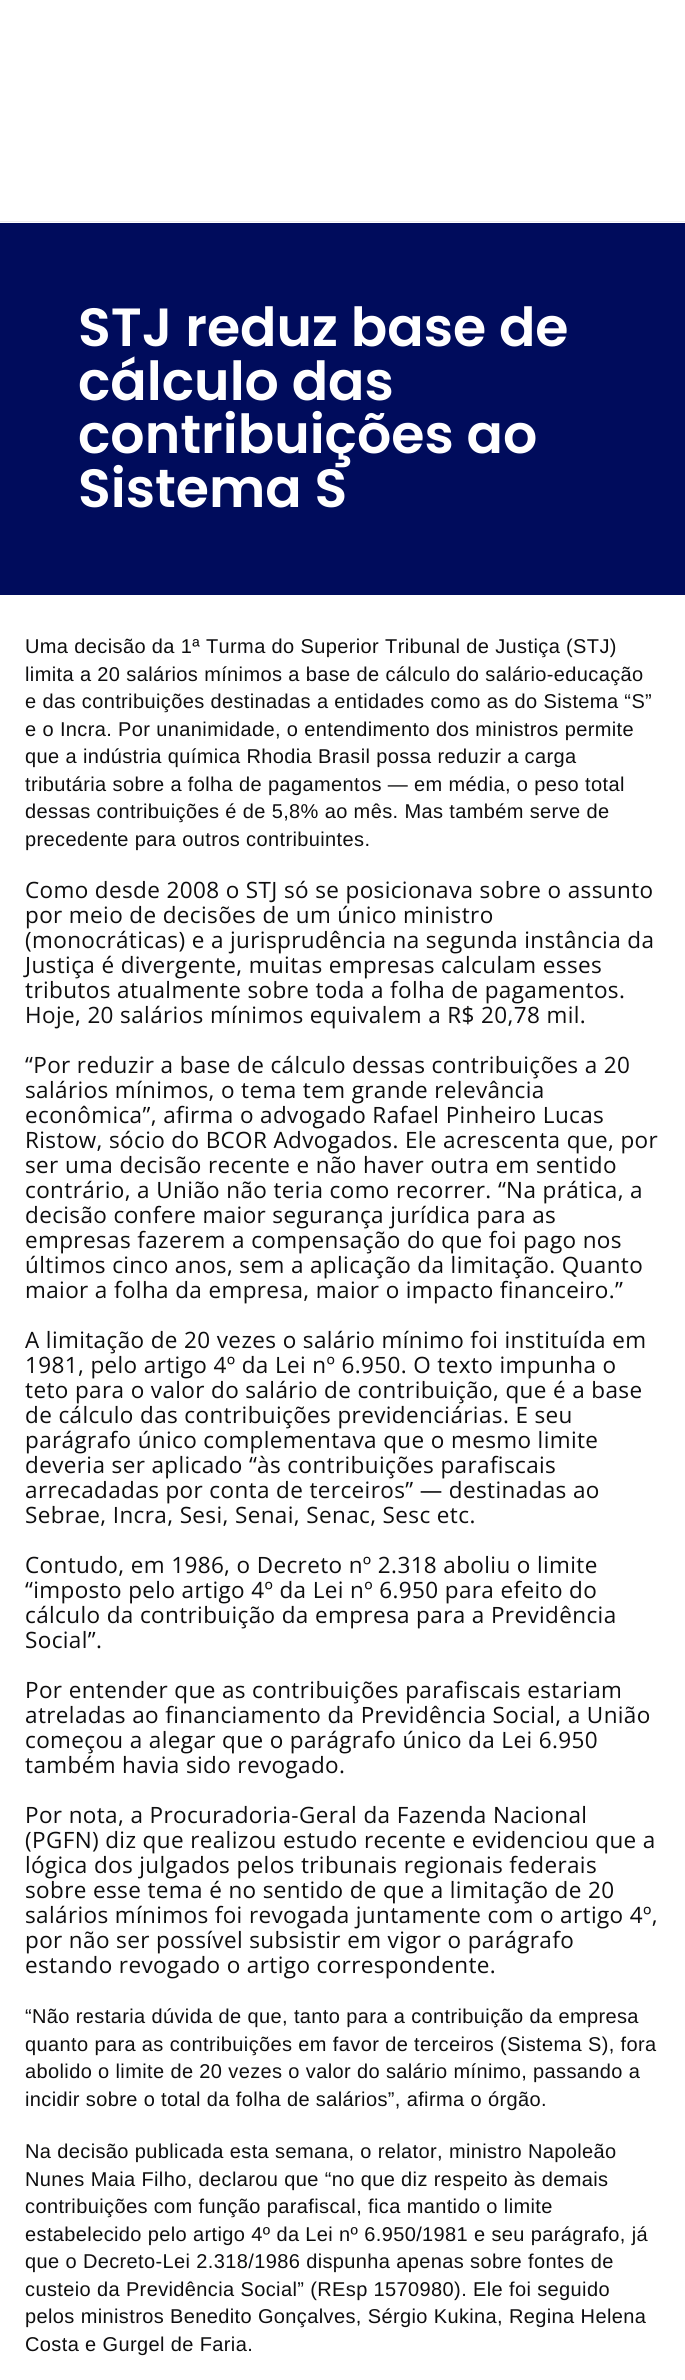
#include <cairo/cairo.h>
#include <math.h>
#include <stddef.h>

typedef struct { double x, y; const char *s; } line_t;
static cairo_t *cr;

static void rgb(unsigned color)
{
	cairo_set_source_rgb(cr, (color >> 16) / 255.0, (color >> 8 & 255) / 255.0, (color & 255) / 255.0);
}

static void tracked(double x, double y, const char *s, double letter, double word)
{
	cairo_move_to(cr, x, y);
	while (*s) {
		char ch[5] = {0};
		int n = 0;
		do ch[n++] = *s++; while ((*s & 0xC0) == 0x80);
		cairo_show_text(cr, ch);
		cairo_rel_move_to(cr, letter + word * (*ch == ' '), 0);
	}
}

int main(void) {
	cairo_surface_t *surface = cairo_image_surface_create(CAIRO_FORMAT_RGB24, 685, 2380);
	cr = cairo_create(surface);
	cairo_font_options_t *options = cairo_font_options_create();
	cairo_font_options_set_hint_metrics(options, CAIRO_HINT_METRICS_OFF);
	cairo_font_options_set_hint_style(options, CAIRO_HINT_STYLE_NONE);
	cairo_set_font_options(cr, options);
	cairo_set_miter_limit(cr, 4);
	rgb(0xffffff);
	cairo_paint(cr);
	rgb(0xececec);
	cairo_rectangle(cr, 0, 221, 685, 1);
	cairo_fill(cr);
	rgb(0x000c5c);
	cairo_rectangle(cr, 0, 223, 685, 372);
	cairo_fill(cr);
	cairo_select_font_face(cr, "Poppins SemiBold", CAIRO_FONT_SLANT_NORMAL, CAIRO_FONT_WEIGHT_NORMAL);
	cairo_set_font_size(cr, 53.75);
	rgb(0xffffff);
	{
		static const line_t items[] = {
			{78, 346, "STJ reduz base de"},
			{78, 400, "cálculo das"},
			{78, 453, "contribuições ao"},
			{78, 507, "Sistema S"},
		};
		for (size_t i = 0; i < sizeof items / sizeof *items; i++) {
			cairo_move_to(cr, items[i].x, items[i].y);
			cairo_show_text(cr, items[i].s);
		}
	}
	cairo_select_font_face(cr, "Liberation Sans", CAIRO_FONT_SLANT_NORMAL, CAIRO_FONT_WEIGHT_NORMAL);
	cairo_set_font_size(cr, 20);
	rgb(0x0e0e0f);
	{
		static const line_t items[] = {
			{25, 653, "Uma decisão da 1ª Turma do Superior Tribunal de Justiça (STJ)"},
			{25, 681, "limita a 20 salários mínimos a base de cálculo do salário-educação"},
			{25, 708, "e das contribuições destinadas a entidades como as do Sistema “S”"},
			{25, 736, "e o Incra. Por unanimidade, o entendimento dos ministros permite"},
			{25, 763, "que a indústria química Rhodia Brasil possa reduzir a carga"},
			{25, 791, "tributária sobre a folha de pagamentos — em média, o peso total"},
			{25, 818, "dessas contribuições é de 5,8% ao mês. Mas também serve de"},
			{25, 846, "precedente para outros contribuintes."},
		};
		for (size_t i = 0; i < sizeof items / sizeof *items; i++) {
			tracked(items[i].x, items[i].y, items[i].s, 0.38, 0);
		}
	}
	cairo_select_font_face(cr, "Open Sans", CAIRO_FONT_SLANT_NORMAL, CAIRO_FONT_WEIGHT_NORMAL);
	cairo_set_font_size(cr, 22.5);
	{
		static const line_t items[] = {
			{25, 898, "Como desde 2008 o STJ só se posicionava sobre o assunto"},
			{25, 923, "por meio de decisões de um único ministro"},
			{25, 948, "(monocráticas) e a jurisprudência na segunda instância da"},
			{25, 973, "Justiça é divergente, muitas empresas calculam esses"},
			{25, 998, "tributos atualmente sobre toda a folha de pagamentos."},
			{25, 1023, "Hoje, 20 salários mínimos equivalem a R$ 20,78 mil."},
			{25, 1073, "“Por reduzir a base de cálculo dessas contribuições a 20"},
			{25, 1098, "salários mínimos, o tema tem grande relevância"},
			{25, 1123, "econômica”, afirma o advogado Rafael Pinheiro Lucas"},
			{25, 1148, "Ristow, sócio do BCOR Advogados. Ele acrescenta que, por"},
			{25, 1173, "ser uma decisão recente e não haver outra em sentido"},
			{25, 1198, "contrário, a União não teria como recorrer. “Na prática, a"},
			{25, 1223, "decisão confere maior segurança jurídica para as"},
			{25, 1248, "empresas fazerem a compensação do que foi pago nos"},
			{25, 1273, "últimos cinco anos, sem a aplicação da limitação. Quanto"},
			{25, 1298, "maior a folha da empresa, maior o impacto financeiro.”"},
			{25, 1348, "A limitação de 20 vezes o salário mínimo foi instituída em"},
			{25, 1373, "1981, pelo artigo 4º da Lei nº 6.950. O texto impunha o"},
			{25, 1398, "teto para o valor do salário de contribuição, que é a base"},
			{25, 1423, "de cálculo das contribuições previdenciárias. E seu"},
			{25, 1448, "parágrafo único complementava que o mesmo limite"},
			{25, 1473, "deveria ser aplicado “às contribuições parafiscais"},
			{25, 1498, "arrecadadas por conta de terceiros” — destinadas ao"},
			{25, 1523, "Sebrae, Incra, Sesi, Senai, Senac, Sesc etc."},
			{25, 1573, "Contudo, em 1986, o Decreto nº 2.318 aboliu o limite"},
			{25, 1598, "“imposto pelo artigo 4º da Lei nº 6.950 para efeito do"},
			{25, 1623, "cálculo da contribuição da empresa para a Previdência"},
			{25, 1648, "Social”."},
			{25, 1698, "Por entender que as contribuições parafiscais estariam"},
			{25, 1723, "atreladas ao financiamento da Previdência Social, a União"},
			{25, 1748, "começou a alegar que o parágrafo único da Lei 6.950"},
			{25, 1773, "também havia sido revogado."},
			{25, 1823, "Por nota, a Procuradoria-Geral da Fazenda Nacional"},
			{25, 1848, "(PGFN) diz que realizou estudo recente e evidenciou que a"},
			{25, 1873, "lógica dos julgados pelos tribunais regionais federais"},
			{25, 1898, "sobre esse tema é no sentido de que a limitação de 20"},
			{25, 1923, "salários mínimos foi revogada juntamente com o artigo 4º,"},
			{25, 1948, "por não ser possível subsistir em vigor o parágrafo"},
			{25, 1973, "estando revogado o artigo correspondente."},
		};
		for (size_t i = 0; i < sizeof items / sizeof *items; i++) {
			tracked(items[i].x, items[i].y, items[i].s, 0.38, 0);
		}
	}
	cairo_select_font_face(cr, "Liberation Sans", CAIRO_FONT_SLANT_NORMAL, CAIRO_FONT_WEIGHT_NORMAL);
	cairo_set_font_size(cr, 20);
	{
		static const line_t items[] = {
			{25, 2023, "“Não restaria dúvida de que, tanto para a contribuição da empresa"},
			{25, 2051, "quanto para as contribuições em favor de terceiros (Sistema S), fora"},
			{25, 2078, "abolido o limite de 20 vezes o valor do salário mínimo, passando a"},
			{25, 2106, "incidir sobre o total da folha de salários”, afirma o órgão."},
			{25, 2158, "Na decisão publicada esta semana, o relator, ministro Napoleão"},
			{25, 2186, "Nunes Maia Filho, declarou que “no que diz respeito às demais"},
			{25, 2213, "contribuições com função parafiscal, fica mantido o limite"},
			{25, 2241, "estabelecido pelo artigo 4º da Lei nº 6.950/1981 e seu parágrafo, já"},
			{25, 2268, "que o Decreto-Lei 2.318/1986 dispunha apenas sobre fontes de"},
			{25, 2296, "custeio da Previdência Social” (REsp 1570980). Ele foi seguido"},
			{25, 2323, "pelos ministros Benedito Gonçalves, Sérgio Kukina, Regina Helena"},
			{25, 2351, "Costa e Gurgel de Faria."},
		};
		for (size_t i = 0; i < sizeof items / sizeof *items; i++) {
			tracked(items[i].x, items[i].y, items[i].s, 0.38, 0);
		}
	}
	cairo_surface_write_to_png(surface, "page.png");
	cairo_font_options_destroy(options);
	cairo_destroy(cr);
	cairo_surface_destroy(surface);
	return 0;
}
